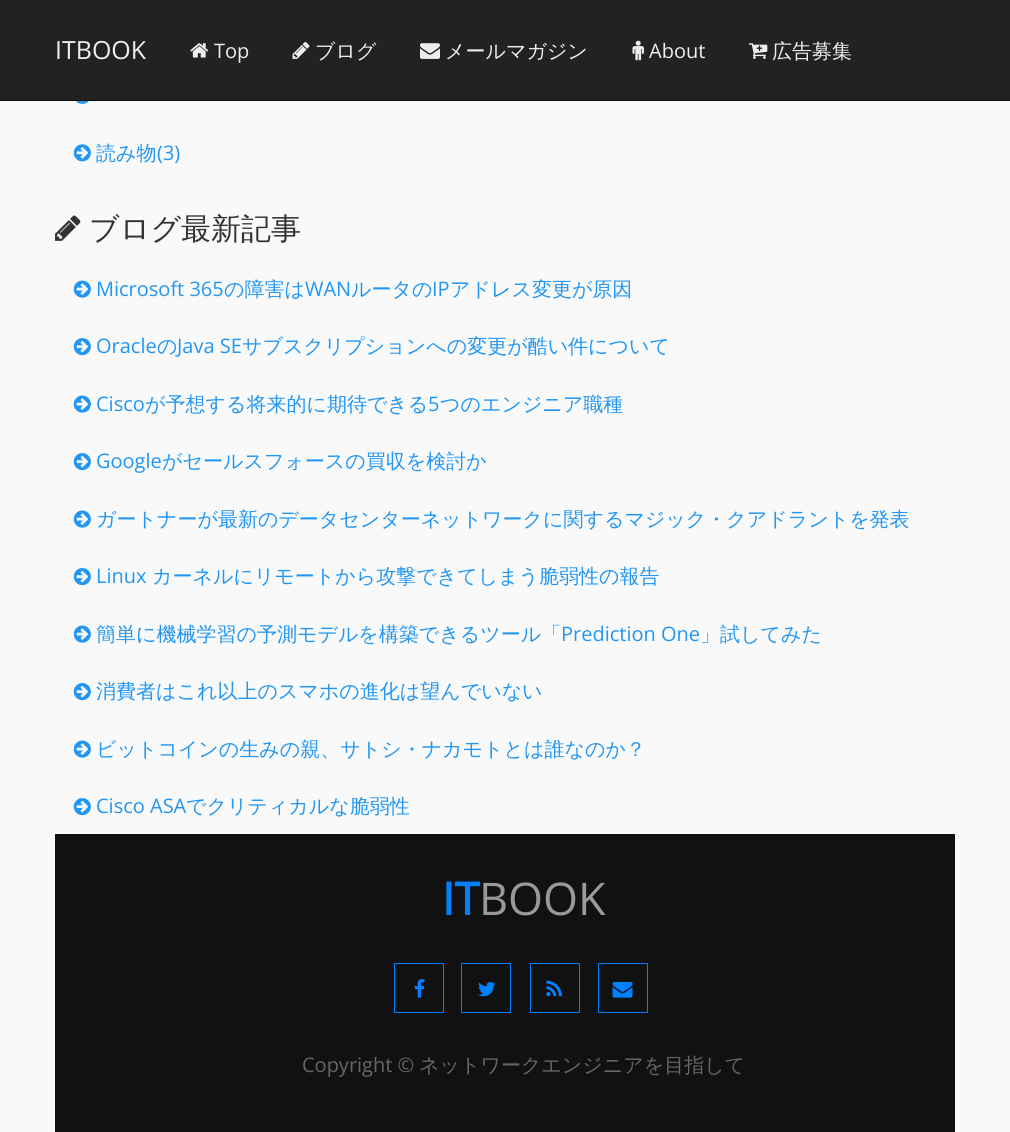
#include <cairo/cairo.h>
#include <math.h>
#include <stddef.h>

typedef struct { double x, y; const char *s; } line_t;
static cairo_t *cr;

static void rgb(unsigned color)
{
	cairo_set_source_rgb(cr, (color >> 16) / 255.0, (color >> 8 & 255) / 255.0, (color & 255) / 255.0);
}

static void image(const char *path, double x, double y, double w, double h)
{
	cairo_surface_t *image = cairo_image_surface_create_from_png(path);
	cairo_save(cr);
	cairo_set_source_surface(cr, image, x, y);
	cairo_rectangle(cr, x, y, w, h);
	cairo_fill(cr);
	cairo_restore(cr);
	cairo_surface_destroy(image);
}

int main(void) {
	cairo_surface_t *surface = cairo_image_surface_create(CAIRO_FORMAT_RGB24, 1010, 1132);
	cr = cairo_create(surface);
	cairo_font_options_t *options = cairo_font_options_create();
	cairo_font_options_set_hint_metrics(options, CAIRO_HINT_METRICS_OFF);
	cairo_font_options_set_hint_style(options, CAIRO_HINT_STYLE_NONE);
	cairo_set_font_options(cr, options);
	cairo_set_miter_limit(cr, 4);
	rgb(0xf9f9f9);
	cairo_paint(cr);
	rgb(0x222222);
	cairo_rectangle(cr, 0, 0, 1010, 100);
	cairo_fill(cr);
	rgb(0x090909);
	cairo_rectangle(cr, 0, 100, 1010, 1);
	cairo_fill(cr);
	image("img/1.png", 190, 43, 19, 15);
	image("img/2.png", 292, 42, 18, 17);
	image("img/3.png", 420, 43, 20, 16);
	image("img/4.png", 632, 40, 12, 21);
	image("img/5.png", 748, 43, 20, 16);
	image("img/6.png", 76, 101, 13, 3);
	image("img/7.png", 73, 144, 18, 18);
	image("img/8.png", 55, 215, 26, 26);
	image("img/9.png", 73, 280, 18, 18);
	image("img/10.png", 73, 338, 18, 18);
	image("img/9.png", 73, 395, 18, 18);
	image("img/10.png", 73, 453, 18, 18);
	image("img/9.png", 73, 510, 18, 18);
	image("img/10.png", 73, 568, 18, 18);
	image("img/9.png", 73, 625, 18, 18);
	image("img/10.png", 73, 683, 18, 18);
	image("img/9.png", 73, 740, 18, 18);
	image("img/10.png", 73, 798, 18, 18);
	rgb(0x111111);
	cairo_rectangle(cr, 55, 834, 900, 298);
	cairo_fill(cr);
	cairo_rectangle(cr, 394.5, 963.5, 49, 49);
	rgb(0x007fff);
	cairo_set_line_width(cr, 1);
	cairo_stroke(cr);
	image("img/11.png", 414, 979, 11, 19);
	cairo_rectangle(cr, 461.5, 963.5, 49, 49);
	cairo_stroke(cr);
	image("img/12.png", 478, 982, 18, 15);
	cairo_rectangle(cr, 530.5, 963.5, 49, 49);
	cairo_stroke(cr);
	image("img/13.png", 546, 980, 16, 17);
	cairo_rectangle(cr, 598.5, 963.5, 49, 49);
	cairo_stroke(cr);
	image("img/14.png", 612, 981, 21, 17);
	cairo_select_font_face(cr, "Open Sans", CAIRO_FONT_SLANT_NORMAL, CAIRO_FONT_WEIGHT_NORMAL);
	cairo_set_font_size(cr, 25);
	rgb(0xeeeeee);
	cairo_move_to(cr, 55, 59);
	cairo_show_text(cr, "ITBOOK");
	cairo_set_font_size(cr, 20);
	cairo_move_to(cr, 214, 58);
	cairo_show_text(cr, "Top");
	cairo_select_font_face(cr, "WenQuanYi Zen Hei Medium", CAIRO_FONT_SLANT_NORMAL, CAIRO_FONT_WEIGHT_NORMAL);
	cairo_move_to(cr, 315, 58);
	cairo_show_text(cr, "ブログ");
	cairo_move_to(cr, 445, 58);
	cairo_show_text(cr, "メールマガジン");
	cairo_select_font_face(cr, "Open Sans", CAIRO_FONT_SLANT_NORMAL, CAIRO_FONT_WEIGHT_NORMAL);
	cairo_move_to(cr, 649, 58);
	cairo_show_text(cr, "About");
	cairo_select_font_face(cr, "WenQuanYi Zen Hei Medium", CAIRO_FONT_SLANT_NORMAL, CAIRO_FONT_WEIGHT_NORMAL);
	cairo_move_to(cr, 772, 58);
	cairo_show_text(cr, "広告募集");
	rgb(0x2196f3);
	cairo_move_to(cr, 96, 160);
	cairo_show_text(cr, "読み物");
	cairo_select_font_face(cr, "Open Sans", CAIRO_FONT_SLANT_NORMAL, CAIRO_FONT_WEIGHT_NORMAL);
	cairo_move_to(cr, 157, 160);
	cairo_show_text(cr, "(3)");
	cairo_select_font_face(cr, "WenQuanYi Zen Hei Medium", CAIRO_FONT_SLANT_NORMAL, CAIRO_FONT_WEIGHT_NORMAL);
	cairo_set_font_size(cr, 30);
	rgb(0x333333);
	cairo_move_to(cr, 89, 239);
	cairo_show_text(cr, "ブログ最新記事");
	cairo_select_font_face(cr, "Open Sans", CAIRO_FONT_SLANT_NORMAL, CAIRO_FONT_WEIGHT_NORMAL);
	cairo_set_font_size(cr, 20);
	rgb(0x2196f3);
	cairo_move_to(cr, 96, 296);
	cairo_show_text(cr, "Microsoft 365");
	cairo_select_font_face(cr, "WenQuanYi Zen Hei Medium", CAIRO_FONT_SLANT_NORMAL, CAIRO_FONT_WEIGHT_NORMAL);
	cairo_move_to(cr, 224, 296);
	cairo_show_text(cr, "の障害は");
	cairo_select_font_face(cr, "Open Sans", CAIRO_FONT_SLANT_NORMAL, CAIRO_FONT_WEIGHT_NORMAL);
	cairo_move_to(cr, 305, 296);
	cairo_show_text(cr, "WAN");
	cairo_select_font_face(cr, "WenQuanYi Zen Hei Medium", CAIRO_FONT_SLANT_NORMAL, CAIRO_FONT_WEIGHT_NORMAL);
	cairo_move_to(cr, 351, 296);
	cairo_show_text(cr, "ルータの");
	cairo_select_font_face(cr, "Open Sans", CAIRO_FONT_SLANT_NORMAL, CAIRO_FONT_WEIGHT_NORMAL);
	cairo_move_to(cr, 432, 296);
	cairo_show_text(cr, "IP");
	cairo_select_font_face(cr, "WenQuanYi Zen Hei Medium", CAIRO_FONT_SLANT_NORMAL, CAIRO_FONT_WEIGHT_NORMAL);
	cairo_move_to(cr, 450, 296);
	cairo_show_text(cr, "アドレス変更が原因");
	cairo_select_font_face(cr, "Open Sans", CAIRO_FONT_SLANT_NORMAL, CAIRO_FONT_WEIGHT_NORMAL);
	cairo_move_to(cr, 96, 353);
	cairo_show_text(cr, "Oracle");
	cairo_select_font_face(cr, "WenQuanYi Zen Hei Medium", CAIRO_FONT_SLANT_NORMAL, CAIRO_FONT_WEIGHT_NORMAL);
	cairo_move_to(cr, 157, 353);
	cairo_show_text(cr, "の");
	cairo_select_font_face(cr, "Open Sans", CAIRO_FONT_SLANT_NORMAL, CAIRO_FONT_WEIGHT_NORMAL);
	cairo_move_to(cr, 177, 353);
	cairo_show_text(cr, "Java SE");
	cairo_select_font_face(cr, "WenQuanYi Zen Hei Medium", CAIRO_FONT_SLANT_NORMAL, CAIRO_FONT_WEIGHT_NORMAL);
	cairo_move_to(cr, 242, 353);
	cairo_show_text(cr, "サブスクリプションへの変更が酷い件について");
	cairo_select_font_face(cr, "Open Sans", CAIRO_FONT_SLANT_NORMAL, CAIRO_FONT_WEIGHT_NORMAL);
	cairo_move_to(cr, 96, 411);
	cairo_show_text(cr, "Cisco");
	cairo_select_font_face(cr, "WenQuanYi Zen Hei Medium", CAIRO_FONT_SLANT_NORMAL, CAIRO_FONT_WEIGHT_NORMAL);
	cairo_move_to(cr, 145, 411);
	cairo_show_text(cr, "が予想する将来的に期待できる");
	cairo_select_font_face(cr, "Open Sans", CAIRO_FONT_SLANT_NORMAL, CAIRO_FONT_WEIGHT_NORMAL);
	cairo_move_to(cr, 428, 411);
	cairo_show_text(cr, "5");
	cairo_select_font_face(cr, "WenQuanYi Zen Hei Medium", CAIRO_FONT_SLANT_NORMAL, CAIRO_FONT_WEIGHT_NORMAL);
	cairo_move_to(cr, 440, 411);
	cairo_show_text(cr, "つのエンジニア職種");
	cairo_select_font_face(cr, "Open Sans", CAIRO_FONT_SLANT_NORMAL, CAIRO_FONT_WEIGHT_NORMAL);
	cairo_move_to(cr, 96, 468);
	cairo_show_text(cr, "Google");
	cairo_select_font_face(cr, "WenQuanYi Zen Hei Medium", CAIRO_FONT_SLANT_NORMAL, CAIRO_FONT_WEIGHT_NORMAL);
	cairo_move_to(cr, 162, 468);
	cairo_show_text(cr, "がセールスフォースの買収を検討か");
	cairo_move_to(cr, 96, 526);
	cairo_show_text(cr, "ガートナーが最新のデータセンターネットワークに関するマジック・クアドラントを発表");
	cairo_select_font_face(cr, "Open Sans", CAIRO_FONT_SLANT_NORMAL, CAIRO_FONT_WEIGHT_NORMAL);
	cairo_move_to(cr, 96, 583);
	cairo_show_text(cr, "Linux");
	cairo_select_font_face(cr, "WenQuanYi Zen Hei Medium", CAIRO_FONT_SLANT_NORMAL, CAIRO_FONT_WEIGHT_NORMAL);
	cairo_move_to(cr, 152, 583);
	cairo_show_text(cr, "カーネルにリモートから攻撃できてしまう脆弱性の報告");
	cairo_move_to(cr, 96, 641);
	cairo_show_text(cr, "簡単に機械学習の予測モデルを構築できるツール「");
	cairo_select_font_face(cr, "Open Sans", CAIRO_FONT_SLANT_NORMAL, CAIRO_FONT_WEIGHT_NORMAL);
	cairo_move_to(cr, 561, 641);
	cairo_show_text(cr, "Prediction One");
	cairo_select_font_face(cr, "WenQuanYi Zen Hei Medium", CAIRO_FONT_SLANT_NORMAL, CAIRO_FONT_WEIGHT_NORMAL);
	{
		static const line_t items[] = {
			{700, 641, "」試してみた"},
			{96, 698, "消費者はこれ以上のスマホの進化は望んでいない"},
			{96, 756, "ビットコインの生みの親、サトシ・ナカモトとは誰なのか？"},
		};
		for (size_t i = 0; i < sizeof items / sizeof *items; i++) {
			cairo_move_to(cr, items[i].x, items[i].y);
			cairo_show_text(cr, items[i].s);
		}
	}
	cairo_select_font_face(cr, "Open Sans", CAIRO_FONT_SLANT_NORMAL, CAIRO_FONT_WEIGHT_NORMAL);
	cairo_move_to(cr, 96, 813);
	cairo_show_text(cr, "Cisco ASA");
	cairo_select_font_face(cr, "WenQuanYi Zen Hei Medium", CAIRO_FONT_SLANT_NORMAL, CAIRO_FONT_WEIGHT_NORMAL);
	cairo_move_to(cr, 186, 813);
	cairo_show_text(cr, "でクリティカルな脆弱性");
	cairo_select_font_face(cr, "Open Sans", CAIRO_FONT_SLANT_NORMAL, CAIRO_FONT_WEIGHT_BOLD);
	cairo_set_font_size(cr, 45);
	rgb(0x007fff);
	cairo_move_to(cr, 442, 915);
	cairo_show_text(cr, "IT");
	cairo_select_font_face(cr, "Open Sans", CAIRO_FONT_SLANT_NORMAL, CAIRO_FONT_WEIGHT_NORMAL);
	rgb(0x999999);
	cairo_move_to(cr, 479, 915);
	cairo_show_text(cr, "BOOK");
	cairo_set_font_size(cr, 20);
	rgb(0x666666);
	cairo_move_to(cr, 302, 1072);
	cairo_show_text(cr, "Copyright ©");
	cairo_select_font_face(cr, "WenQuanYi Zen Hei Medium", CAIRO_FONT_SLANT_NORMAL, CAIRO_FONT_WEIGHT_NORMAL);
	cairo_move_to(cr, 419, 1072);
	cairo_show_text(cr, "ネットワークエンジニアを目指して");
	cairo_surface_write_to_png(surface, "page.png");
	cairo_font_options_destroy(options);
	cairo_destroy(cr);
	cairo_surface_destroy(surface);
	return 0;
}
